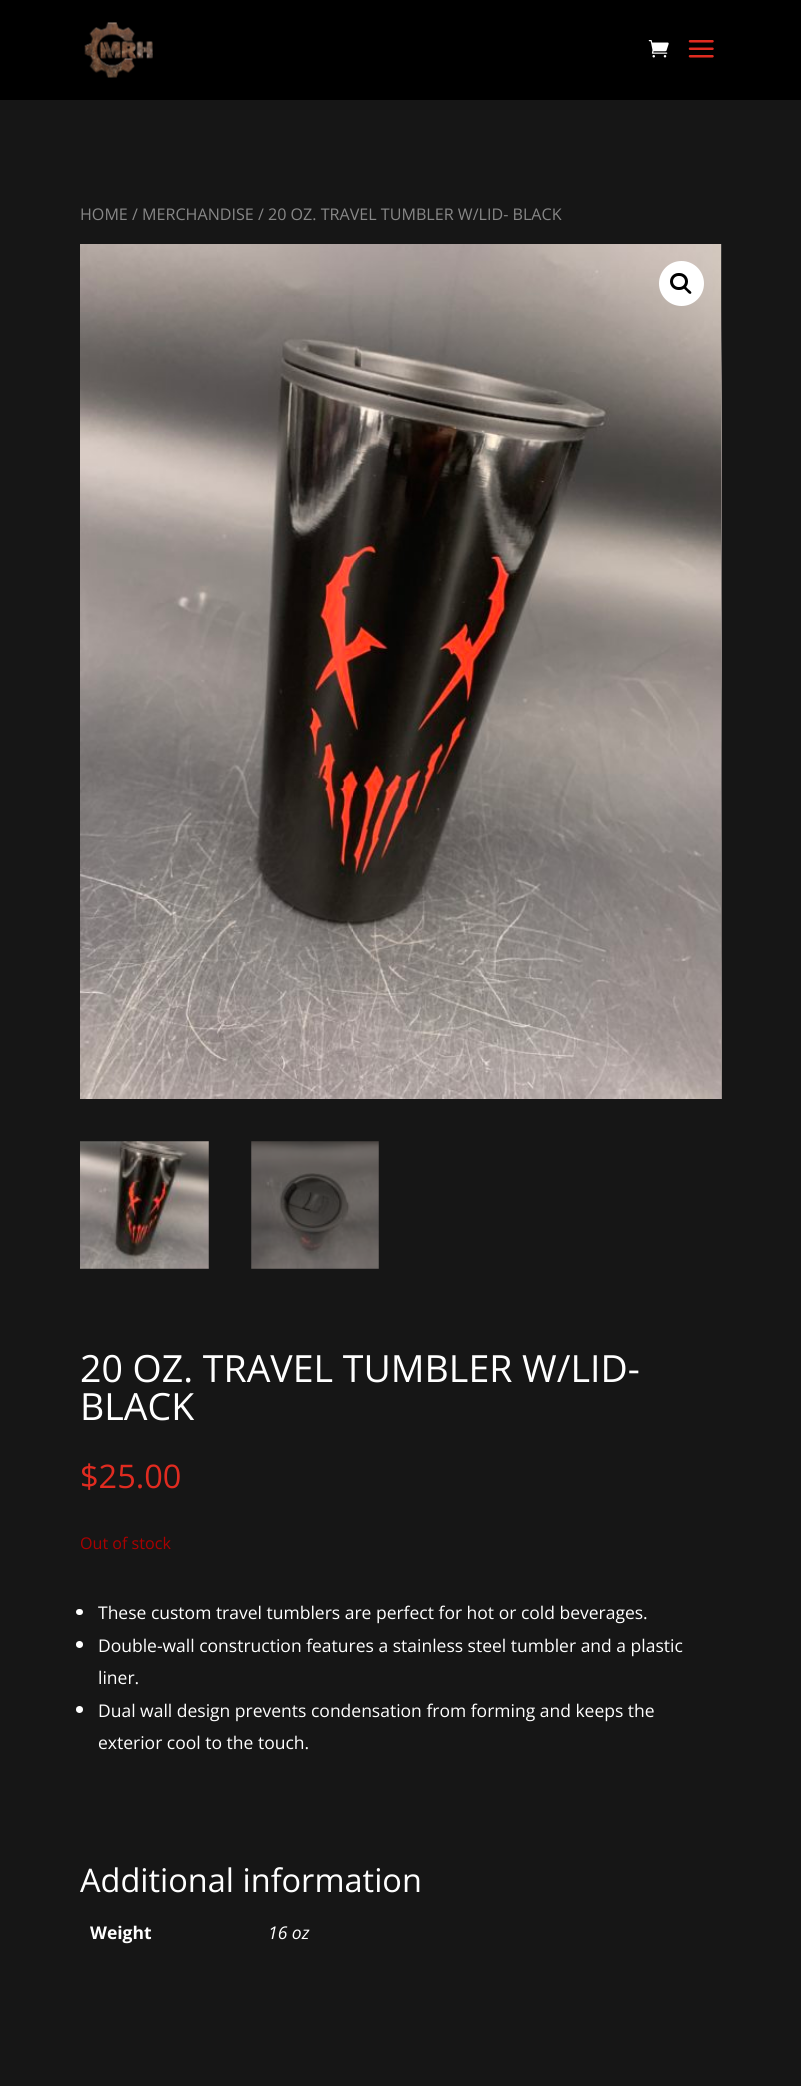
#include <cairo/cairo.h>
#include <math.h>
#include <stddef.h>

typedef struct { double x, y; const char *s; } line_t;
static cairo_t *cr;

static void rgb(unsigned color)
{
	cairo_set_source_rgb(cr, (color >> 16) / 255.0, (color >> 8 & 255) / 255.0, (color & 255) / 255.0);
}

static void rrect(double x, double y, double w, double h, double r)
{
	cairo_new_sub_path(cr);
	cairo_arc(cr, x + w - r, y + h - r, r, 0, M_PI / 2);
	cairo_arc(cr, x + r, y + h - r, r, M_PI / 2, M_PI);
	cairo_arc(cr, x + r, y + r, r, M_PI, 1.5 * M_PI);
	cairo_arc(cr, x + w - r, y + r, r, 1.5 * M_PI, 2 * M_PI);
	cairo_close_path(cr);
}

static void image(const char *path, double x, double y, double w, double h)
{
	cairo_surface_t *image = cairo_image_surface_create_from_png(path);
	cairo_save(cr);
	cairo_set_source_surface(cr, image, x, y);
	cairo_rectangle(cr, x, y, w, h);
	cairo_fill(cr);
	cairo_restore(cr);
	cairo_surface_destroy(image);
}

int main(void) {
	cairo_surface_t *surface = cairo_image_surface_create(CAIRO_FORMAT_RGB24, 801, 2086);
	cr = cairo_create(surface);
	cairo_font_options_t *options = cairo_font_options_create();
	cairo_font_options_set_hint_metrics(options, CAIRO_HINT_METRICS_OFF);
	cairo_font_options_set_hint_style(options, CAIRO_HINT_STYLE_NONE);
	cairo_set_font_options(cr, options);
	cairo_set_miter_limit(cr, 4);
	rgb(0x161616);
	cairo_paint(cr);
	rgb(0x000000);
	cairo_rectangle(cr, 0, 0, 801, 100);
	cairo_fill(cr);
	image("img/1.png", 84, 22, 69, 56);
	image("img/2.png", 648, 40, 21, 18);
	image("img/3.png", 688, 40, 26, 18);
	image("img/4.png", 80, 244, 641, 855);
	image("img/5.png", 721, 244, 1, 855);
	rgb(0xffffff);
	cairo_arc(cr, 681.5, 283.5, 22.5, 0, 2 * M_PI);
	cairo_fill(cr);
	rrect(671.5, 274.5, 15, 14, 7);
	rgb(0x000000);
	cairo_set_line_width(cr, 3);
	cairo_stroke(cr);
	cairo_new_path(cr);
	cairo_move_to(cr, 684, 286.5);
	cairo_curve_to(cr, 685, 285, 687.5, 288.5, 688, 289);
	cairo_curve_to(cr, 689, 290, 692.5, 292, 691, 293.5);
	cairo_curve_to(cr, 689.5, 295, 687, 291.5, 686.5, 291);
	cairo_curve_to(cr, 685.5, 290, 682.5, 288, 684, 286.5);
	cairo_close_path(cr);
	cairo_fill(cr);
	image("img/6.png", 80, 1141, 129, 128);
	image("img/7.png", 251, 1141, 128, 128);
	rgb(0xffffff);
	rrect(76, 1609, 7, 6, 3);
	cairo_fill(cr);
	cairo_arc(cr, 79.5, 1644.5, 3.5, 0, 2 * M_PI);
	cairo_fill(cr);
	cairo_arc(cr, 79.5, 1709.5, 3.5, 0, 2 * M_PI);
	cairo_fill(cr);
	cairo_select_font_face(cr, "Open Sans", CAIRO_FONT_SLANT_NORMAL, CAIRO_FONT_WEIGHT_NORMAL);
	cairo_set_font_size(cr, 16.1);
	rgb(0x878787);
	cairo_move_to(cr, 80, 220);
	cairo_show_text(cr, "HOME / MERCHANDISE / 20 OZ. TRAVEL TUMBLER W/LID- BLACK");
	cairo_set_font_size(cr, 37.5);
	rgb(0xffffff);
	cairo_move_to(cr, 80, 1382);
	cairo_show_text(cr, "20 OZ. TRAVEL TUMBLER W/LID-");
	cairo_move_to(cr, 80, 1420);
	cairo_show_text(cr, "BLACK");
	cairo_set_font_size(cr, 32.5);
	rgb(0xe02b20);
	cairo_move_to(cr, 80, 1488);
	cairo_show_text(cr, "$25.00");
	cairo_set_font_size(cr, 16.1);
	rgb(0xaa0000);
	cairo_move_to(cr, 80, 1549);
	cairo_show_text(cr, "Out of stock");
	cairo_set_font_size(cr, 17.5);
	rgb(0xffffff);
	{
		static const line_t items[] = {
			{98, 1619, "These custom travel tumblers are perfect for hot or cold beverages."},
			{98, 1652, "Double-wall construction features a stainless steel tumbler and a plastic"},
			{98, 1684, "liner."},
			{98, 1717, "Dual wall design prevents condensation from forming and keeps the"},
			{98, 1749, "exterior cool to the touch."},
		};
		for (size_t i = 0; i < sizeof items / sizeof *items; i++) {
			cairo_move_to(cr, items[i].x, items[i].y);
			cairo_show_text(cr, items[i].s);
		}
	}
	cairo_set_font_size(cr, 32.5);
	cairo_move_to(cr, 80, 1892);
	cairo_show_text(cr, "Additional information");
	cairo_select_font_face(cr, "Open Sans", CAIRO_FONT_SLANT_NORMAL, CAIRO_FONT_WEIGHT_BOLD);
	cairo_set_font_size(cr, 17.5);
	cairo_move_to(cr, 90, 1939);
	cairo_show_text(cr, "Weight");
	cairo_select_font_face(cr, "Open Sans", CAIRO_FONT_SLANT_ITALIC, CAIRO_FONT_WEIGHT_NORMAL);
	cairo_move_to(cr, 268, 1939);
	cairo_show_text(cr, "16 oz");
	cairo_surface_write_to_png(surface, "page.png");
	cairo_font_options_destroy(options);
	cairo_destroy(cr);
	cairo_surface_destroy(surface);
	return 0;
}
